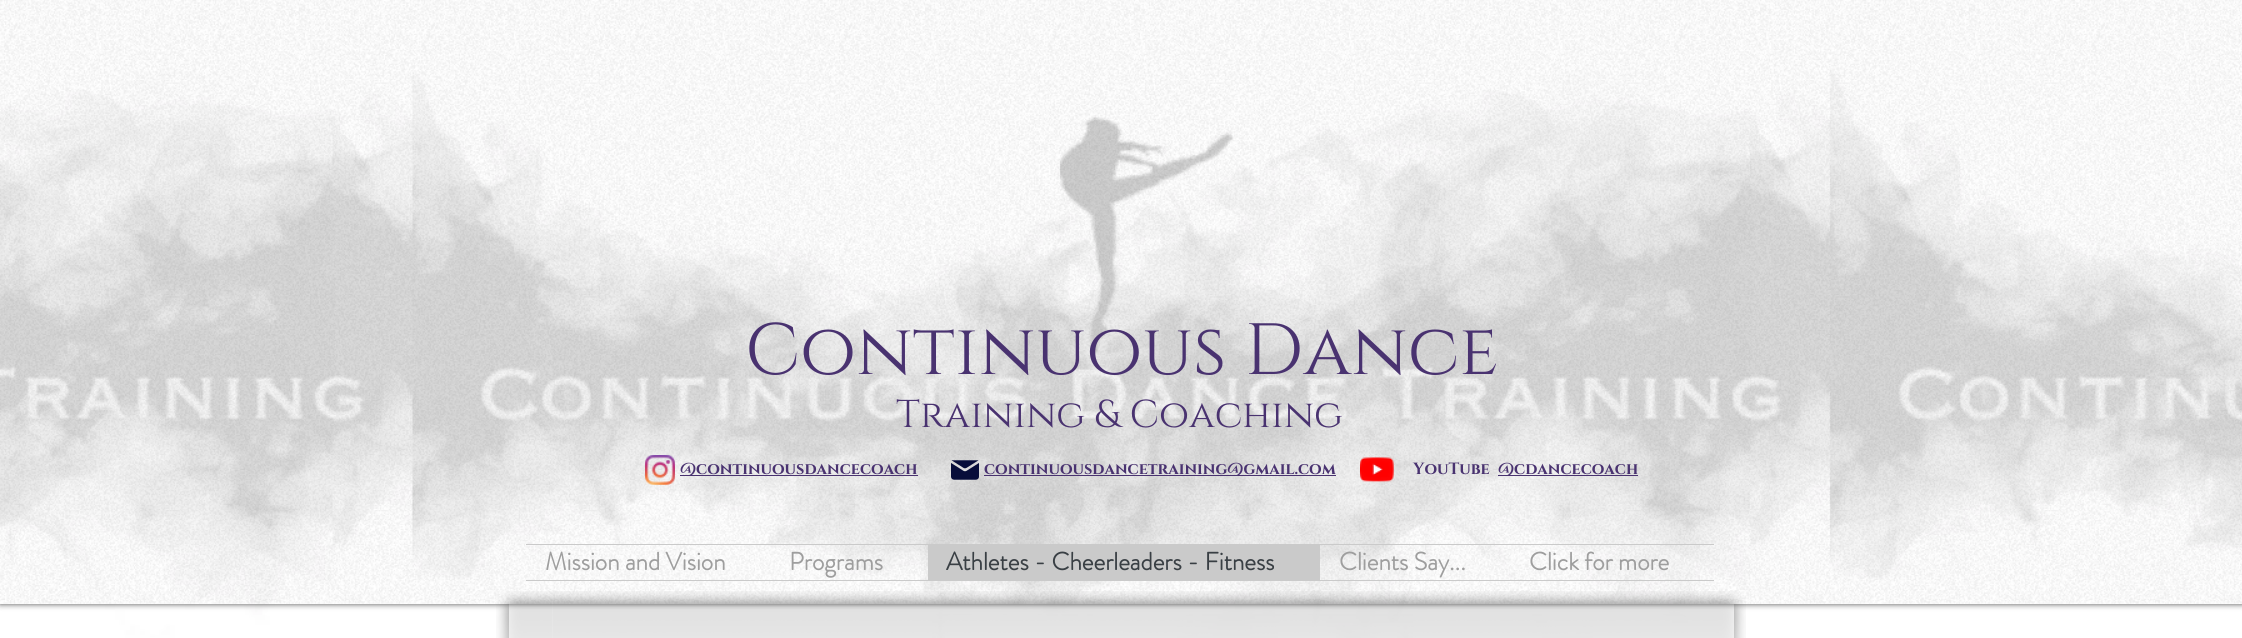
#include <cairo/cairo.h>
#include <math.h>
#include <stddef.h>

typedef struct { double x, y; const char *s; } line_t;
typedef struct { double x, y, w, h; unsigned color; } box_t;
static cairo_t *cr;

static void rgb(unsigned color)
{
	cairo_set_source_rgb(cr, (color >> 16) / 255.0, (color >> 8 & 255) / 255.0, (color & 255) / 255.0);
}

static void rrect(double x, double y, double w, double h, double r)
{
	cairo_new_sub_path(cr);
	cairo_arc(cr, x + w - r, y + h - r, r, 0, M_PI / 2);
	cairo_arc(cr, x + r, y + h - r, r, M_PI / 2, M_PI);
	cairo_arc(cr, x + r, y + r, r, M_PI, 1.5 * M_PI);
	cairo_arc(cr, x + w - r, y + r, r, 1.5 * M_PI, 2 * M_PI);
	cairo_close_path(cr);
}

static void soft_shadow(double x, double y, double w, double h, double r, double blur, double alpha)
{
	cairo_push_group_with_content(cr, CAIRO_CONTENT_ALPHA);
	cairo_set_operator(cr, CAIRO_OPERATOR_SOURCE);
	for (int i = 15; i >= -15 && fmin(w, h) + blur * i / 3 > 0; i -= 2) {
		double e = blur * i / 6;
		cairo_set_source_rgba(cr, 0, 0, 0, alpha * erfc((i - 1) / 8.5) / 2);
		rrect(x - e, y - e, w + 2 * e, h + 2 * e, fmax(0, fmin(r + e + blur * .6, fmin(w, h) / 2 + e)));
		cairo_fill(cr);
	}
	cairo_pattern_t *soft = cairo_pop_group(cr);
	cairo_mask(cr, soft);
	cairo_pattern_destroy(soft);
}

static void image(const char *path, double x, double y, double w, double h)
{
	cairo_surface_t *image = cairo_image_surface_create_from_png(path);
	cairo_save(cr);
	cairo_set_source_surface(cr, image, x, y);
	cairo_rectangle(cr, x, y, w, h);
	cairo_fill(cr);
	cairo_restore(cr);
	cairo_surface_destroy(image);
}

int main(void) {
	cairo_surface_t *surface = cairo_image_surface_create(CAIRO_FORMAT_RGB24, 2242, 638);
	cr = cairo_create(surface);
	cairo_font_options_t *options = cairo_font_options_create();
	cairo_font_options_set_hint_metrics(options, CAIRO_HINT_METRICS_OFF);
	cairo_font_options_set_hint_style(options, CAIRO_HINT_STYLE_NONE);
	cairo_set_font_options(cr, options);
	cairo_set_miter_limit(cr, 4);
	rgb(0xffffff);
	cairo_paint(cr);
	image("img/1.png", 0, 70, 2242, 568);
	image("img/6.png", 496, 591, 57, 47);
	image("img/7.png", 552, 591, 1138, 47);
	image("img/8.png", 1690, 591, 56, 47);
	cairo_set_source_rgba(cr, 1, 1, 1, 0.7);
	cairo_rectangle(cr, 509, 604, 1225, 34);
	cairo_fill(cr);
	cairo_save(cr);
	cairo_set_fill_rule(cr, CAIRO_FILL_RULE_EVEN_ODD);
	cairo_new_path(cr);
	cairo_move_to(cr, 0, 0);
	cairo_line_to(cr, 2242, 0);
	cairo_line_to(cr, 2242, 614);
	cairo_line_to(cr, 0, 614);
	cairo_close_path(cr);
	cairo_move_to(cr, 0, 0);
	cairo_line_to(cr, 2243, 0);
	cairo_line_to(cr, 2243, 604);
	cairo_line_to(cr, 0, 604);
	cairo_close_path(cr);
	cairo_clip(cr);
	rgb(0x000000);
	soft_shadow(0, 0, 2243, 604, 0, 3, 0.7);
	cairo_restore(cr);
	image("img/2.png", 0, 0, 2242, 604);
	image("img/3.png", 645, 455, 30, 30);
	rgb(0x493270);
	cairo_rectangle(cr, 680, 475, 238, 1);
	cairo_fill(cr);
	image("img/4.png", 951, 460, 28, 20);
	cairo_rectangle(cr, 984, 475, 352, 1);
	cairo_fill(cr);
	image("img/5.png", 1360, 457, 34, 26);
	{
		static const box_t items[] = {
			{1498, 475, 140, 1, 0x493270},
			{526, 544, 1188, 1, 0xcacaca},
			{526, 580, 1188, 1, 0xcacaca},
			{928, 545, 392, 35, 0xcacaca},
		};
		for (size_t i = 0; i < sizeof items / sizeof *items; i++) {
			rgb(items[i].color);
			cairo_rectangle(cr, items[i].x, items[i].y, items[i].w, items[i].h);
			cairo_fill(cr);
		}
	}
	cairo_select_font_face(cr, "Cinzel", CAIRO_FONT_SLANT_NORMAL, CAIRO_FONT_WEIGHT_NORMAL);
	cairo_set_font_size(cr, 72.5);
	rgb(0x493270);
	cairo_move_to(cr, 745, 374);
	cairo_show_text(cr, "Continuous Dance");
	cairo_set_font_size(cr, 38.75);
	cairo_move_to(cr, 896, 427);
	cairo_show_text(cr, "Training & Coaching");
	cairo_select_font_face(cr, "Cinzel", CAIRO_FONT_SLANT_NORMAL, CAIRO_FONT_WEIGHT_BOLD);
	cairo_set_font_size(cr, 16.25);
	{
		static const line_t items[] = {
			{680, 474, "@continuousdancecoach"},
			{984, 474, "continuousdancetraining@gmail.com"},
			{1413, 474, "YouTube"},
			{1498, 474, "@cdancecoach"},
		};
		for (size_t i = 0; i < sizeof items / sizeof *items; i++) {
			cairo_move_to(cr, items[i].x, items[i].y);
			cairo_show_text(cr, items[i].s);
		}
	}
	cairo_select_font_face(cr, "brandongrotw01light", CAIRO_FONT_SLANT_NORMAL, CAIRO_FONT_WEIGHT_BOLD);
	cairo_set_font_size(cr, 25);
	rgb(0x9e9e9e);
	cairo_move_to(cr, 545, 570);
	cairo_show_text(cr, "Mission and Vision");
	cairo_move_to(cr, 789, 570);
	cairo_show_text(cr, "Programs");
	rgb(0x393f44);
	cairo_move_to(cr, 946, 570);
	cairo_show_text(cr, "Athletes - Cheerleaders - Fitness");
	rgb(0x9e9e9e);
	cairo_move_to(cr, 1339, 570);
	cairo_show_text(cr, "Clients Say...");
	cairo_move_to(cr, 1529, 570);
	cairo_show_text(cr, "Click for more");
	cairo_surface_write_to_png(surface, "page.png");
	cairo_font_options_destroy(options);
	cairo_destroy(cr);
	cairo_surface_destroy(surface);
	return 0;
}
